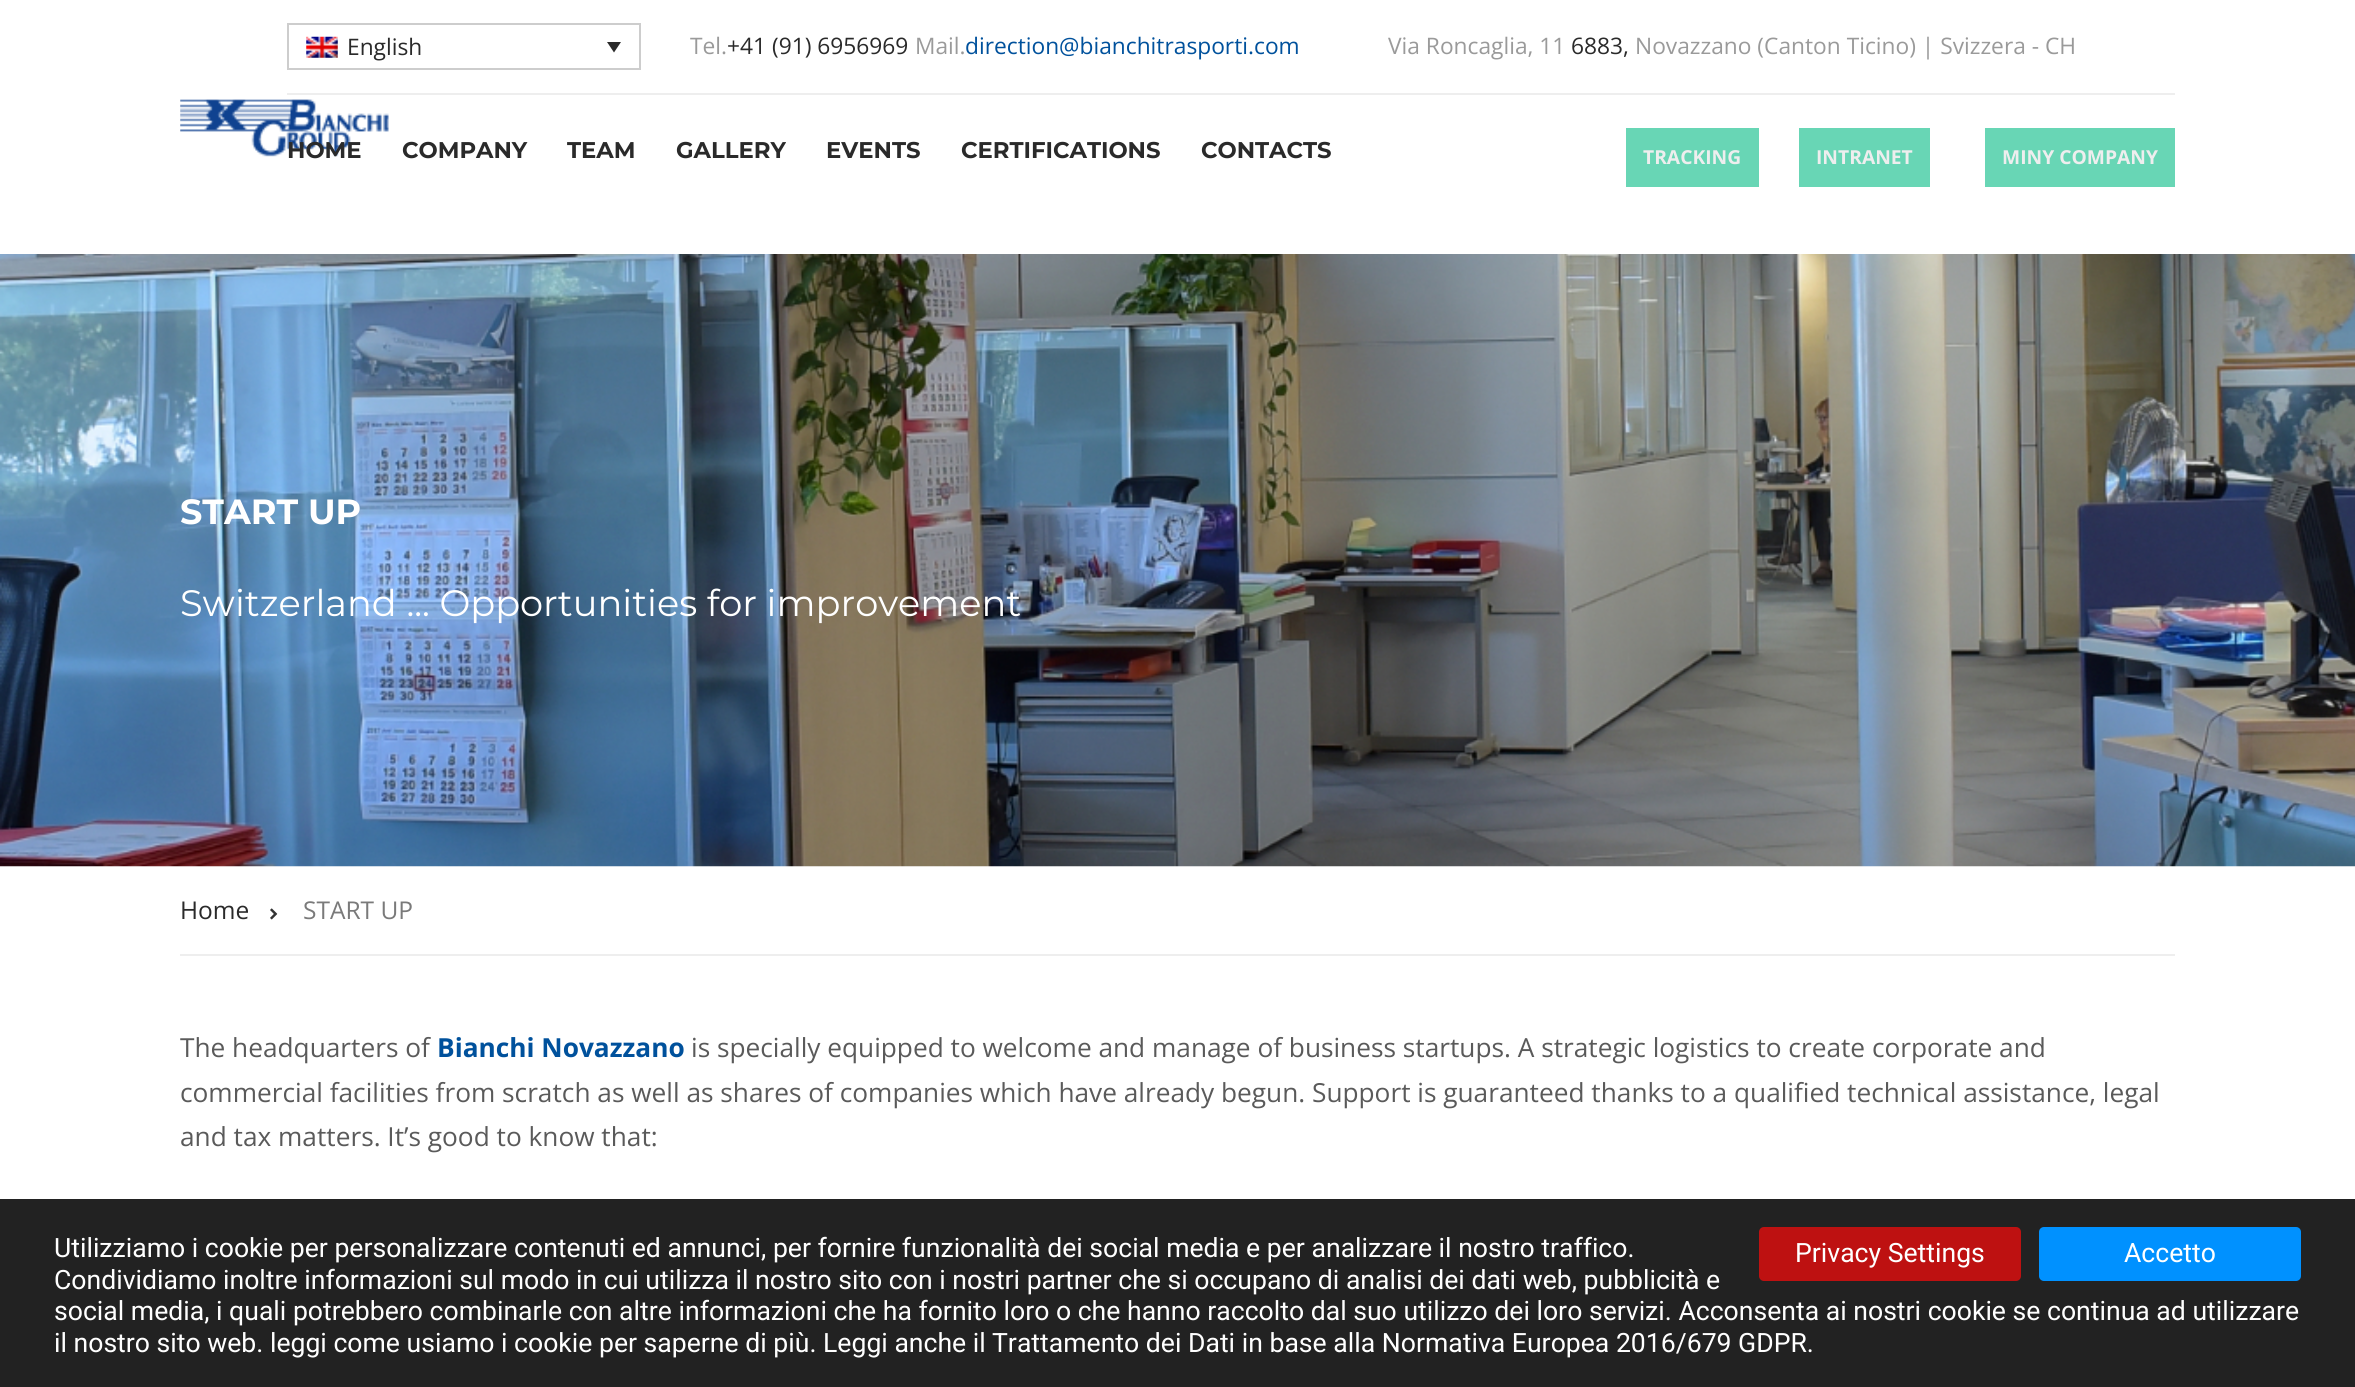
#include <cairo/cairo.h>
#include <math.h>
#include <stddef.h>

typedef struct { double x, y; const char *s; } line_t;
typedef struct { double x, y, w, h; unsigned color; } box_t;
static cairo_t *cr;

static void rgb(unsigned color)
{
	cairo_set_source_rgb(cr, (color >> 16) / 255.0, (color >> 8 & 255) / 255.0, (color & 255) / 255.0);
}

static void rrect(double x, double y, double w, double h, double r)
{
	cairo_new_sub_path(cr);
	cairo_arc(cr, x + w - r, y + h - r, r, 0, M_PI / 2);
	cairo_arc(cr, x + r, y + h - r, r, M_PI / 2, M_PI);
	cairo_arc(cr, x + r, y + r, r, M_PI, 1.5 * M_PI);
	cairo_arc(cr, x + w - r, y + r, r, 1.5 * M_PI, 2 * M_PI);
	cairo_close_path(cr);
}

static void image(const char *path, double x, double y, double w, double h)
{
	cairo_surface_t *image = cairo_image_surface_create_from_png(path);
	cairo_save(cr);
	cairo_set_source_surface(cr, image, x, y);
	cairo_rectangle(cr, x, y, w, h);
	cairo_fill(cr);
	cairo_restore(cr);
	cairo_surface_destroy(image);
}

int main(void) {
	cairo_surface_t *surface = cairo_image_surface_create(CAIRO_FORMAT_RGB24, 2355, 1387);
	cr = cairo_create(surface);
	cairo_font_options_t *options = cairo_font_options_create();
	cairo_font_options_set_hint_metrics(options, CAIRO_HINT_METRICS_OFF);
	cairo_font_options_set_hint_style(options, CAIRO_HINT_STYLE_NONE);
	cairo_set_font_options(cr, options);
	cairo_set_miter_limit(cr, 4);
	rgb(0xffffff);
	cairo_paint(cr);
	image("img/1.png", 180, 99, 209, 58);
	rgb(0xeeeeee);
	cairo_rectangle(cr, 287, 93, 1888, 2);
	cairo_fill(cr);
	cairo_rectangle(cr, 288, 24, 352, 45);
	rgb(0xcdcdcd);
	cairo_stroke(cr);
	image("img/2.png", 306, 36, 32, 22);
	rgb(0x2a2a2a);
	cairo_new_path(cr);
	cairo_move_to(cr, 607, 42);
	cairo_line_to(cr, 621, 42);
	cairo_line_to(cr, 614, 52.5);
	cairo_close_path(cr);
	cairo_fill(cr);
	{
		static const box_t items[] = {
			{1626, 128, 133, 59, 0x68d6b5},
			{1799, 128, 131, 59, 0x68d6b5},
			{1985, 128, 190, 59, 0x68d6b5},
		};
		for (size_t i = 0; i < sizeof items / sizeof *items; i++) {
			rgb(items[i].color);
			cairo_rectangle(cr, items[i].x, items[i].y, items[i].w, items[i].h);
			cairo_fill(cr);
		}
	}
	image("img/3.png", 0, 254, 2355, 613);
	rgb(0xeeeeee);
	cairo_rectangle(cr, 180, 954, 1995, 2);
	cairo_fill(cr);
	image("img/4.png", 270, 908, 8, 12);
	rgb(0x222222);
	cairo_rectangle(cr, 0, 1199, 2355, 188);
	cairo_fill(cr);
	rgb(0xbe1111);
	rrect(1759, 1227, 262, 54, 5);
	cairo_fill(cr);
	rgb(0x0091ff);
	rrect(2039, 1227, 262, 54, 5);
	cairo_fill(cr);
	cairo_select_font_face(cr, "Open Sans", CAIRO_FONT_SLANT_NORMAL, CAIRO_FONT_WEIGHT_NORMAL);
	cairo_set_font_size(cr, 22.75);
	rgb(0x2a2a2a);
	cairo_move_to(cr, 347, 55);
	cairo_show_text(cr, "English");
	rgb(0x9a9a9a);
	cairo_move_to(cr, 690, 54);
	cairo_show_text(cr, "Tel.");
	rgb(0x2a2a2a);
	cairo_move_to(cr, 727, 54);
	cairo_show_text(cr, "+41 (91) 6956969");
	rgb(0x9a9a9a);
	cairo_move_to(cr, 915, 54);
	cairo_show_text(cr, "Mail.");
	rgb(0x00519c);
	cairo_move_to(cr, 965, 54);
	cairo_show_text(cr, "direction@bianchitrasporti.com");
	rgb(0x9a9a9a);
	cairo_move_to(cr, 1388, 54);
	cairo_show_text(cr, "Via Roncaglia, 11");
	rgb(0x2a2a2a);
	cairo_move_to(cr, 1571, 54);
	cairo_show_text(cr, "6883,");
	rgb(0x9a9a9a);
	cairo_move_to(cr, 1635, 54);
	cairo_show_text(cr, "Novazzano (Canton Ticino) | Svizzera - CH");
	cairo_select_font_face(cr, "Montserrat", CAIRO_FONT_SLANT_NORMAL, CAIRO_FONT_WEIGHT_BOLD);
	rgb(0x2a2a2a);
	{
		static const line_t items[] = {
			{287, 158, "HOME"},
			{402, 158, "COMPANY"},
			{567, 158, "TEAM"},
			{676, 158, "GALLERY"},
			{826, 158, "EVENTS"},
			{961, 158, "CERTIFICATIONS"},
			{1201, 158, "CONTACTS"},
		};
		for (size_t i = 0; i < sizeof items / sizeof *items; i++) {
			cairo_move_to(cr, items[i].x, items[i].y);
			cairo_show_text(cr, items[i].s);
		}
	}
	cairo_select_font_face(cr, "Open Sans", CAIRO_FONT_SLANT_NORMAL, CAIRO_FONT_WEIGHT_BOLD);
	cairo_set_font_size(cr, 19.25);
	rgb(0xeeeeee);
	{
		static const line_t items[] = {
			{1643, 164, "TRACKING"},
			{1816, 164, "INTRANET"},
			{2002, 164, "MINY COMPANY"},
		};
		for (size_t i = 0; i < sizeof items / sizeof *items; i++) {
			cairo_move_to(cr, items[i].x, items[i].y);
			cairo_show_text(cr, items[i].s);
		}
	}
	cairo_select_font_face(cr, "Montserrat", CAIRO_FONT_SLANT_NORMAL, CAIRO_FONT_WEIGHT_BOLD);
	cairo_set_font_size(cr, 35);
	rgb(0xffffff);
	cairo_move_to(cr, 180, 524);
	cairo_show_text(cr, "START UP");
	cairo_select_font_face(cr, "Montserrat", CAIRO_FONT_SLANT_NORMAL, CAIRO_FONT_WEIGHT_NORMAL);
	cairo_set_font_size(cr, 36.75);
	cairo_move_to(cr, 180, 616);
	cairo_show_text(cr, "Switzerland ... Opportunities for improvement");
	cairo_select_font_face(cr, "Open Sans", CAIRO_FONT_SLANT_NORMAL, CAIRO_FONT_WEIGHT_NORMAL);
	cairo_set_font_size(cr, 24.5);
	rgb(0x2a2a2a);
	cairo_move_to(cr, 180, 919);
	cairo_show_text(cr, "Home");
	rgb(0x7a7a7a);
	cairo_move_to(cr, 303, 919);
	cairo_show_text(cr, "START UP");
	cairo_set_font_size(cr, 26.25);
	rgb(0x5a5a5a);
	cairo_move_to(cr, 180, 1057);
	cairo_show_text(cr, "The headquarters of");
	cairo_select_font_face(cr, "Open Sans", CAIRO_FONT_SLANT_NORMAL, CAIRO_FONT_WEIGHT_BOLD);
	rgb(0x00519c);
	cairo_move_to(cr, 437, 1057);
	cairo_show_text(cr, "Bianchi Novazzano");
	cairo_select_font_face(cr, "Open Sans", CAIRO_FONT_SLANT_NORMAL, CAIRO_FONT_WEIGHT_NORMAL);
	rgb(0x5a5a5a);
	{
		static const line_t items[] = {
			{691, 1057, "is specially equipped to welcome and manage of business startups. A strategic logistics to create corporate and"},
			{180, 1102, "commercial facilities from scratch as well as shares of companies which have already begun. Support is guaranteed thanks to a qualified technical assistance, legal"},
			{180, 1146, "and tax matters. It’s good to know that:"},
		};
		for (size_t i = 0; i < sizeof items / sizeof *items; i++) {
			cairo_move_to(cr, items[i].x, items[i].y);
			cairo_show_text(cr, items[i].s);
		}
	}
	cairo_select_font_face(cr, "Roboto", CAIRO_FONT_SLANT_NORMAL, CAIRO_FONT_WEIGHT_NORMAL);
	cairo_set_font_size(cr, 26.6);
	rgb(0xffffff);
	{
		static const line_t items[] = {
			{54, 1257, "Utilizziamo i cookie per personalizzare contenuti ed annunci, per fornire funzionalità dei social media e per analizzare il nostro traffico."},
			{54, 1289, "Condividiamo inoltre informazioni sul modo in cui utilizza il nostro sito con i nostri partner che si occupano di analisi dei dati web, pubblicità e"},
			{54, 1320, "social media, i quali potrebbero combinarle con altre informazioni che ha fornito loro o che hanno raccolto dal suo utilizzo dei loro servizi. Acconsenta ai nostri cookie se continua ad utilizzare"},
			{54, 1352, "il nostro sito web. leggi come usiamo i cookie per saperne di più. Leggi anche il"},
			{992, 1352, "Trattamento dei Dati in base alla Normativa Europea 2016/679 GDPR."},
			{1795, 1262, "Privacy Settings"},
			{2124, 1262, "Accetto"},
		};
		for (size_t i = 0; i < sizeof items / sizeof *items; i++) {
			cairo_move_to(cr, items[i].x, items[i].y);
			cairo_show_text(cr, items[i].s);
		}
	}
	cairo_surface_write_to_png(surface, "page.png");
	cairo_font_options_destroy(options);
	cairo_destroy(cr);
	cairo_surface_destroy(surface);
	return 0;
}
